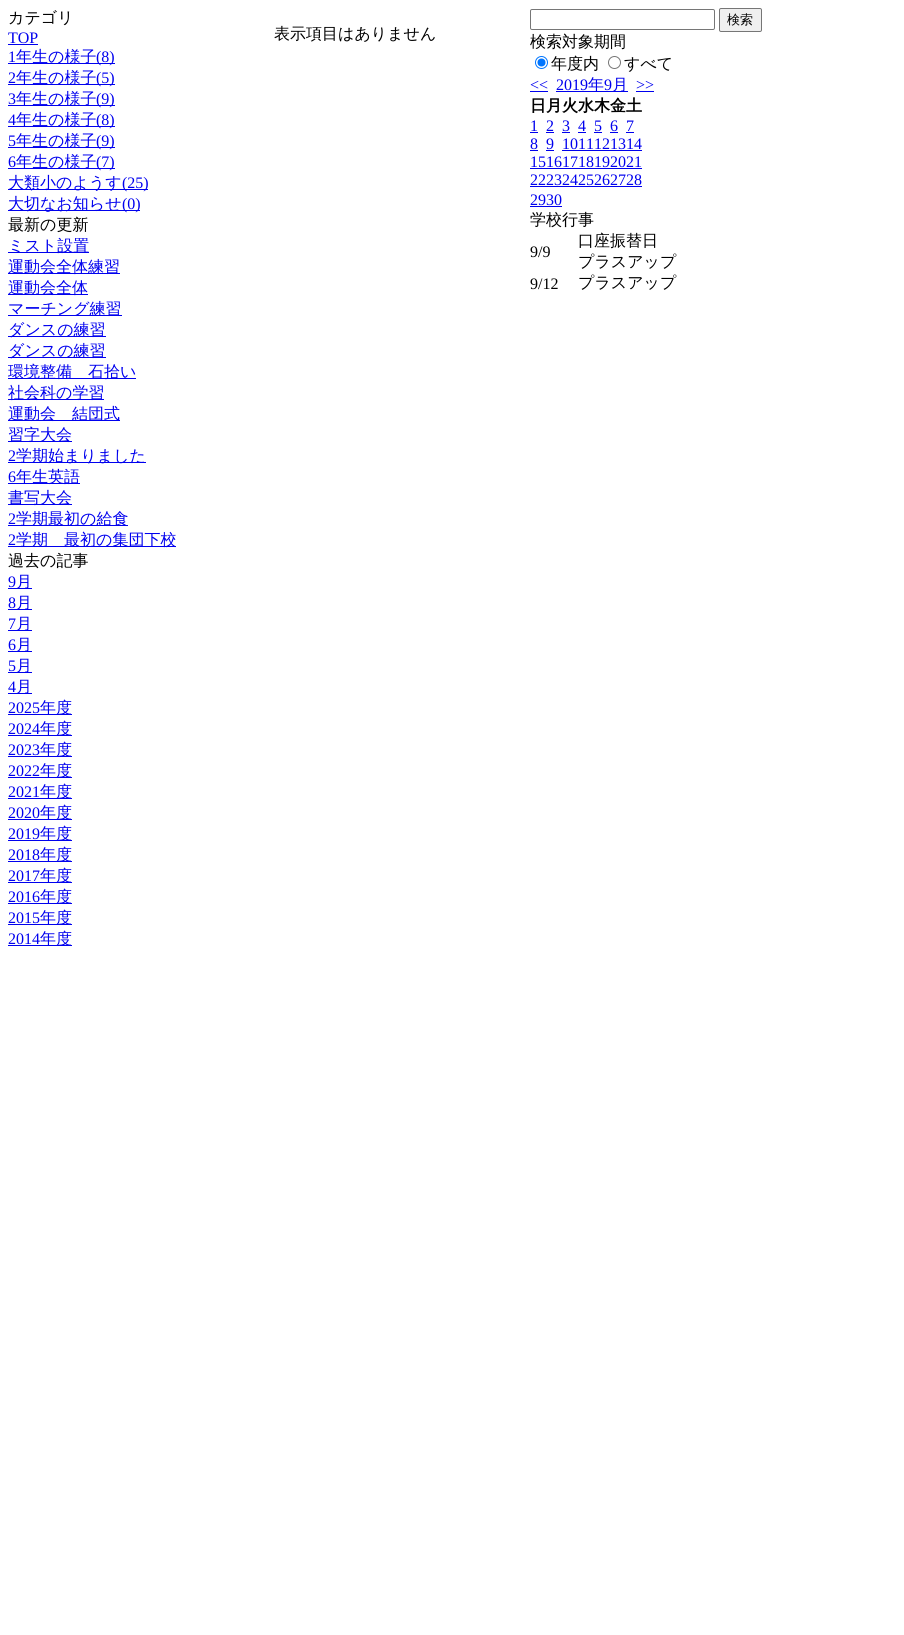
#include <cairo/cairo.h>
#include <math.h>
#include <stddef.h>

typedef struct { double x, y; const char *s; } line_t;
typedef struct { double x, y, w, h; unsigned color; } box_t;
static cairo_t *cr;

static void rgb(unsigned color)
{
	cairo_set_source_rgb(cr, (color >> 16) / 255.0, (color >> 8 & 255) / 255.0, (color & 255) / 255.0);
}

static void rrect(double x, double y, double w, double h, double r)
{
	cairo_new_sub_path(cr);
	cairo_arc(cr, x + w - r, y + h - r, r, 0, M_PI / 2);
	cairo_arc(cr, x + r, y + h - r, r, M_PI / 2, M_PI);
	cairo_arc(cr, x + r, y + r, r, M_PI, 1.5 * M_PI);
	cairo_arc(cr, x + w - r, y + r, r, 1.5 * M_PI, 2 * M_PI);
	cairo_close_path(cr);
}

int main(void) {
	cairo_surface_t *surface = cairo_image_surface_create(CAIRO_FORMAT_RGB24, 904, 1635);
	cr = cairo_create(surface);
	cairo_font_options_t *options = cairo_font_options_create();
	cairo_font_options_set_hint_metrics(options, CAIRO_HINT_METRICS_OFF);
	cairo_font_options_set_hint_style(options, CAIRO_HINT_STYLE_NONE);
	cairo_set_font_options(cr, options);
	cairo_set_miter_limit(cr, 4);
	rgb(0xffffff);
	cairo_paint(cr);
	{
		static const box_t items[] = {
			{8, 44, 30, 1, 0x0000ee},
			{8, 63, 107, 1, 0x0000ee},
			{8, 84, 107, 1, 0x0000ee},
			{8, 105, 107, 1, 0x0000ee},
			{8, 126, 107, 1, 0x0000ee},
			{8, 147, 107, 1, 0x0000ee},
			{8, 168, 107, 1, 0x0000ee},
			{8, 189, 140, 1, 0x0000ee},
			{8, 210, 132, 1, 0x0000ee},
			{8, 252, 81, 1, 0x0000ee},
			{8, 273, 112, 1, 0x0000ee},
			{8, 294, 80, 1, 0x0000ee},
			{8, 315, 114, 1, 0x0000ee},
			{8, 336, 98, 1, 0x0000ee},
			{8, 357, 98, 1, 0x0000ee},
			{8, 378, 128, 1, 0x0000ee},
			{8, 399, 96, 1, 0x0000ee},
			{8, 420, 112, 1, 0x0000ee},
			{8, 441, 64, 1, 0x0000ee},
			{8, 462, 138, 1, 0x0000ee},
			{8, 483, 72, 1, 0x0000ee},
			{8, 504, 64, 1, 0x0000ee},
			{8, 525, 120, 1, 0x0000ee},
			{8, 546, 168, 1, 0x0000ee},
			{8, 588, 24, 1, 0x0000ee},
			{8, 609, 24, 1, 0x0000ee},
			{8, 630, 24, 1, 0x0000ee},
			{8, 651, 24, 1, 0x0000ee},
			{8, 672, 24, 1, 0x0000ee},
			{8, 693, 24, 1, 0x0000ee},
			{8, 714, 64, 1, 0x0000ee},
			{8, 735, 64, 1, 0x0000ee},
			{8, 756, 64, 1, 0x0000ee},
			{8, 777, 64, 1, 0x0000ee},
			{8, 798, 64, 1, 0x0000ee},
			{8, 819, 64, 1, 0x0000ee},
			{8, 840, 64, 1, 0x0000ee},
			{8, 861, 64, 1, 0x0000ee},
			{8, 882, 64, 1, 0x0000ee},
			{8, 903, 64, 1, 0x0000ee},
			{8, 924, 64, 1, 0x0000ee},
			{8, 945, 64, 1, 0x0000ee},
		};
		for (size_t i = 0; i < sizeof items / sizeof *items; i++) {
			rgb(items[i].color);
			cairo_rectangle(cr, items[i].x, items[i].y, items[i].w, items[i].h);
			cairo_fill(cr);
		}
	}
	rrect(530.5, 9.5, 184, 20, 1.5);
	rgb(0x767676);
	cairo_set_line_width(cr, 1);
	cairo_stroke(cr);
	rgb(0xefefef);
	rrect(719.5, 8.5, 42, 23, 1.5);
	cairo_fill_preserve(cr);
	rgb(0x767676);
	cairo_stroke(cr);
	cairo_arc(cr, 541.5, 62.5, 6, 0, 2 * M_PI);
	rgb(0x0075ff);
	cairo_stroke(cr);
	cairo_arc(cr, 541.5, 62.5, 4, 0, 2 * M_PI);
	cairo_fill(cr);
	cairo_arc(cr, 614.5, 62.5, 6, 0, 2 * M_PI);
	rgb(0x767676);
	cairo_stroke(cr);
	{
		static const box_t items[] = {
			{530, 91, 18, 1, 0x0000ee},
			{556, 91, 72, 1, 0x0000ee},
			{636, 91, 18, 1, 0x0000ee},
			{530, 132, 8, 1, 0x0000ee},
			{546, 132, 8, 1, 0x0000ee},
			{562, 132, 8, 1, 0x0000ee},
			{578, 132, 8, 1, 0x0000ee},
			{594, 132, 8, 1, 0x0000ee},
			{610, 132, 8, 1, 0x0000ee},
			{626, 132, 8, 1, 0x0000ee},
			{530, 150, 8, 1, 0x0000ee},
			{546, 150, 8, 1, 0x0000ee},
			{562, 150, 80, 1, 0x0000ee},
			{530, 168, 112, 1, 0x0000ee},
			{530, 186, 112, 1, 0x0000ee},
			{530, 206, 32, 1, 0x0000ee},
		};
		for (size_t i = 0; i < sizeof items / sizeof *items; i++) {
			rgb(items[i].color);
			cairo_rectangle(cr, items[i].x, items[i].y, items[i].w, items[i].h);
			cairo_fill(cr);
		}
	}
	cairo_select_font_face(cr, "WenQuanYi Zen Hei Medium", CAIRO_FONT_SLANT_NORMAL, CAIRO_FONT_WEIGHT_NORMAL);
	cairo_set_font_size(cr, 16);
	rgb(0x000000);
	cairo_move_to(cr, 8, 23);
	cairo_show_text(cr, "カテゴリ");
	cairo_select_font_face(cr, "Liberation Serif", CAIRO_FONT_SLANT_NORMAL, CAIRO_FONT_WEIGHT_NORMAL);
	rgb(0x0000ee);
	cairo_move_to(cr, 8, 43);
	cairo_show_text(cr, "TOP");
	cairo_move_to(cr, 8, 62);
	cairo_show_text(cr, "1");
	cairo_select_font_face(cr, "WenQuanYi Zen Hei Medium", CAIRO_FONT_SLANT_NORMAL, CAIRO_FONT_WEIGHT_NORMAL);
	cairo_move_to(cr, 16, 62);
	cairo_show_text(cr, "年生の様子");
	cairo_select_font_face(cr, "Liberation Serif", CAIRO_FONT_SLANT_NORMAL, CAIRO_FONT_WEIGHT_NORMAL);
	cairo_move_to(cr, 96, 62);
	cairo_show_text(cr, "(8)");
	cairo_move_to(cr, 8, 83);
	cairo_show_text(cr, "2");
	cairo_select_font_face(cr, "WenQuanYi Zen Hei Medium", CAIRO_FONT_SLANT_NORMAL, CAIRO_FONT_WEIGHT_NORMAL);
	cairo_move_to(cr, 16, 83);
	cairo_show_text(cr, "年生の様子");
	cairo_select_font_face(cr, "Liberation Serif", CAIRO_FONT_SLANT_NORMAL, CAIRO_FONT_WEIGHT_NORMAL);
	cairo_move_to(cr, 96, 83);
	cairo_show_text(cr, "(5)");
	cairo_move_to(cr, 8, 104);
	cairo_show_text(cr, "3");
	cairo_select_font_face(cr, "WenQuanYi Zen Hei Medium", CAIRO_FONT_SLANT_NORMAL, CAIRO_FONT_WEIGHT_NORMAL);
	cairo_move_to(cr, 16, 104);
	cairo_show_text(cr, "年生の様子");
	cairo_select_font_face(cr, "Liberation Serif", CAIRO_FONT_SLANT_NORMAL, CAIRO_FONT_WEIGHT_NORMAL);
	cairo_move_to(cr, 96, 104);
	cairo_show_text(cr, "(9)");
	cairo_move_to(cr, 8, 125);
	cairo_show_text(cr, "4");
	cairo_select_font_face(cr, "WenQuanYi Zen Hei Medium", CAIRO_FONT_SLANT_NORMAL, CAIRO_FONT_WEIGHT_NORMAL);
	cairo_move_to(cr, 16, 125);
	cairo_show_text(cr, "年生の様子");
	cairo_select_font_face(cr, "Liberation Serif", CAIRO_FONT_SLANT_NORMAL, CAIRO_FONT_WEIGHT_NORMAL);
	cairo_move_to(cr, 96, 125);
	cairo_show_text(cr, "(8)");
	cairo_move_to(cr, 8, 146);
	cairo_show_text(cr, "5");
	cairo_select_font_face(cr, "WenQuanYi Zen Hei Medium", CAIRO_FONT_SLANT_NORMAL, CAIRO_FONT_WEIGHT_NORMAL);
	cairo_move_to(cr, 16, 146);
	cairo_show_text(cr, "年生の様子");
	cairo_select_font_face(cr, "Liberation Serif", CAIRO_FONT_SLANT_NORMAL, CAIRO_FONT_WEIGHT_NORMAL);
	cairo_move_to(cr, 96, 146);
	cairo_show_text(cr, "(9)");
	cairo_move_to(cr, 8, 167);
	cairo_show_text(cr, "6");
	cairo_select_font_face(cr, "WenQuanYi Zen Hei Medium", CAIRO_FONT_SLANT_NORMAL, CAIRO_FONT_WEIGHT_NORMAL);
	cairo_move_to(cr, 16, 167);
	cairo_show_text(cr, "年生の様子");
	cairo_select_font_face(cr, "Liberation Serif", CAIRO_FONT_SLANT_NORMAL, CAIRO_FONT_WEIGHT_NORMAL);
	cairo_move_to(cr, 96, 167);
	cairo_show_text(cr, "(7)");
	cairo_select_font_face(cr, "WenQuanYi Zen Hei Medium", CAIRO_FONT_SLANT_NORMAL, CAIRO_FONT_WEIGHT_NORMAL);
	cairo_move_to(cr, 8, 188);
	cairo_show_text(cr, "大類小のようす");
	cairo_select_font_face(cr, "Liberation Serif", CAIRO_FONT_SLANT_NORMAL, CAIRO_FONT_WEIGHT_NORMAL);
	cairo_move_to(cr, 122, 188);
	cairo_show_text(cr, "(25)");
	cairo_select_font_face(cr, "WenQuanYi Zen Hei Medium", CAIRO_FONT_SLANT_NORMAL, CAIRO_FONT_WEIGHT_NORMAL);
	cairo_move_to(cr, 8, 209);
	cairo_show_text(cr, "大切なお知らせ");
	cairo_select_font_face(cr, "Liberation Serif", CAIRO_FONT_SLANT_NORMAL, CAIRO_FONT_WEIGHT_NORMAL);
	cairo_move_to(cr, 122, 209);
	cairo_show_text(cr, "(0)");
	cairo_select_font_face(cr, "WenQuanYi Zen Hei Medium", CAIRO_FONT_SLANT_NORMAL, CAIRO_FONT_WEIGHT_NORMAL);
	rgb(0x000000);
	cairo_move_to(cr, 8, 230);
	cairo_show_text(cr, "最新の更新");
	rgb(0x0000ee);
	{
		static const line_t items[] = {
			{8, 251, "ミスト設置"},
			{8, 272, "運動会全体練習"},
			{8, 293, "運動会全体"},
			{8, 314, "マーチング練習"},
			{8, 335, "ダンスの練習"},
			{8, 356, "ダンスの練習"},
			{8, 377, "環境整備　石拾い"},
			{8, 398, "社会科の学習"},
			{8, 419, "運動会　結団式"},
			{8, 440, "習字大会"},
		};
		for (size_t i = 0; i < sizeof items / sizeof *items; i++) {
			cairo_move_to(cr, items[i].x, items[i].y);
			cairo_show_text(cr, items[i].s);
		}
	}
	cairo_select_font_face(cr, "Liberation Serif", CAIRO_FONT_SLANT_NORMAL, CAIRO_FONT_WEIGHT_NORMAL);
	cairo_move_to(cr, 8, 461);
	cairo_show_text(cr, "2");
	cairo_select_font_face(cr, "WenQuanYi Zen Hei Medium", CAIRO_FONT_SLANT_NORMAL, CAIRO_FONT_WEIGHT_NORMAL);
	cairo_move_to(cr, 16, 461);
	cairo_show_text(cr, "学期始まりました");
	cairo_select_font_face(cr, "Liberation Serif", CAIRO_FONT_SLANT_NORMAL, CAIRO_FONT_WEIGHT_NORMAL);
	cairo_move_to(cr, 8, 482);
	cairo_show_text(cr, "6");
	cairo_select_font_face(cr, "WenQuanYi Zen Hei Medium", CAIRO_FONT_SLANT_NORMAL, CAIRO_FONT_WEIGHT_NORMAL);
	cairo_move_to(cr, 16, 482);
	cairo_show_text(cr, "年生英語");
	cairo_move_to(cr, 8, 503);
	cairo_show_text(cr, "書写大会");
	cairo_select_font_face(cr, "Liberation Serif", CAIRO_FONT_SLANT_NORMAL, CAIRO_FONT_WEIGHT_NORMAL);
	cairo_move_to(cr, 8, 524);
	cairo_show_text(cr, "2");
	cairo_select_font_face(cr, "WenQuanYi Zen Hei Medium", CAIRO_FONT_SLANT_NORMAL, CAIRO_FONT_WEIGHT_NORMAL);
	cairo_move_to(cr, 16, 524);
	cairo_show_text(cr, "学期最初の給食");
	cairo_select_font_face(cr, "Liberation Serif", CAIRO_FONT_SLANT_NORMAL, CAIRO_FONT_WEIGHT_NORMAL);
	cairo_move_to(cr, 8, 545);
	cairo_show_text(cr, "2");
	cairo_select_font_face(cr, "WenQuanYi Zen Hei Medium", CAIRO_FONT_SLANT_NORMAL, CAIRO_FONT_WEIGHT_NORMAL);
	cairo_move_to(cr, 16, 545);
	cairo_show_text(cr, "学期　最初の集団下校");
	rgb(0x000000);
	cairo_move_to(cr, 8, 566);
	cairo_show_text(cr, "過去の記事");
	cairo_select_font_face(cr, "Liberation Serif", CAIRO_FONT_SLANT_NORMAL, CAIRO_FONT_WEIGHT_NORMAL);
	rgb(0x0000ee);
	cairo_move_to(cr, 8, 587);
	cairo_show_text(cr, "9");
	cairo_select_font_face(cr, "WenQuanYi Zen Hei Medium", CAIRO_FONT_SLANT_NORMAL, CAIRO_FONT_WEIGHT_NORMAL);
	cairo_move_to(cr, 16, 587);
	cairo_show_text(cr, "月");
	cairo_select_font_face(cr, "Liberation Serif", CAIRO_FONT_SLANT_NORMAL, CAIRO_FONT_WEIGHT_NORMAL);
	cairo_move_to(cr, 8, 608);
	cairo_show_text(cr, "8");
	cairo_select_font_face(cr, "WenQuanYi Zen Hei Medium", CAIRO_FONT_SLANT_NORMAL, CAIRO_FONT_WEIGHT_NORMAL);
	cairo_move_to(cr, 16, 608);
	cairo_show_text(cr, "月");
	cairo_select_font_face(cr, "Liberation Serif", CAIRO_FONT_SLANT_NORMAL, CAIRO_FONT_WEIGHT_NORMAL);
	cairo_move_to(cr, 8, 629);
	cairo_show_text(cr, "7");
	cairo_select_font_face(cr, "WenQuanYi Zen Hei Medium", CAIRO_FONT_SLANT_NORMAL, CAIRO_FONT_WEIGHT_NORMAL);
	cairo_move_to(cr, 16, 629);
	cairo_show_text(cr, "月");
	cairo_select_font_face(cr, "Liberation Serif", CAIRO_FONT_SLANT_NORMAL, CAIRO_FONT_WEIGHT_NORMAL);
	cairo_move_to(cr, 8, 650);
	cairo_show_text(cr, "6");
	cairo_select_font_face(cr, "WenQuanYi Zen Hei Medium", CAIRO_FONT_SLANT_NORMAL, CAIRO_FONT_WEIGHT_NORMAL);
	cairo_move_to(cr, 16, 650);
	cairo_show_text(cr, "月");
	cairo_select_font_face(cr, "Liberation Serif", CAIRO_FONT_SLANT_NORMAL, CAIRO_FONT_WEIGHT_NORMAL);
	cairo_move_to(cr, 8, 671);
	cairo_show_text(cr, "5");
	cairo_select_font_face(cr, "WenQuanYi Zen Hei Medium", CAIRO_FONT_SLANT_NORMAL, CAIRO_FONT_WEIGHT_NORMAL);
	cairo_move_to(cr, 16, 671);
	cairo_show_text(cr, "月");
	cairo_select_font_face(cr, "Liberation Serif", CAIRO_FONT_SLANT_NORMAL, CAIRO_FONT_WEIGHT_NORMAL);
	cairo_move_to(cr, 8, 692);
	cairo_show_text(cr, "4");
	cairo_select_font_face(cr, "WenQuanYi Zen Hei Medium", CAIRO_FONT_SLANT_NORMAL, CAIRO_FONT_WEIGHT_NORMAL);
	cairo_move_to(cr, 16, 692);
	cairo_show_text(cr, "月");
	cairo_select_font_face(cr, "Liberation Serif", CAIRO_FONT_SLANT_NORMAL, CAIRO_FONT_WEIGHT_NORMAL);
	cairo_move_to(cr, 8, 713);
	cairo_show_text(cr, "2025");
	cairo_select_font_face(cr, "WenQuanYi Zen Hei Medium", CAIRO_FONT_SLANT_NORMAL, CAIRO_FONT_WEIGHT_NORMAL);
	cairo_move_to(cr, 40, 713);
	cairo_show_text(cr, "年度");
	cairo_select_font_face(cr, "Liberation Serif", CAIRO_FONT_SLANT_NORMAL, CAIRO_FONT_WEIGHT_NORMAL);
	cairo_move_to(cr, 8, 734);
	cairo_show_text(cr, "2024");
	cairo_select_font_face(cr, "WenQuanYi Zen Hei Medium", CAIRO_FONT_SLANT_NORMAL, CAIRO_FONT_WEIGHT_NORMAL);
	cairo_move_to(cr, 40, 734);
	cairo_show_text(cr, "年度");
	cairo_select_font_face(cr, "Liberation Serif", CAIRO_FONT_SLANT_NORMAL, CAIRO_FONT_WEIGHT_NORMAL);
	cairo_move_to(cr, 8, 755);
	cairo_show_text(cr, "2023");
	cairo_select_font_face(cr, "WenQuanYi Zen Hei Medium", CAIRO_FONT_SLANT_NORMAL, CAIRO_FONT_WEIGHT_NORMAL);
	cairo_move_to(cr, 40, 755);
	cairo_show_text(cr, "年度");
	cairo_select_font_face(cr, "Liberation Serif", CAIRO_FONT_SLANT_NORMAL, CAIRO_FONT_WEIGHT_NORMAL);
	cairo_move_to(cr, 8, 776);
	cairo_show_text(cr, "2022");
	cairo_select_font_face(cr, "WenQuanYi Zen Hei Medium", CAIRO_FONT_SLANT_NORMAL, CAIRO_FONT_WEIGHT_NORMAL);
	cairo_move_to(cr, 40, 776);
	cairo_show_text(cr, "年度");
	cairo_select_font_face(cr, "Liberation Serif", CAIRO_FONT_SLANT_NORMAL, CAIRO_FONT_WEIGHT_NORMAL);
	cairo_move_to(cr, 8, 797);
	cairo_show_text(cr, "2021");
	cairo_select_font_face(cr, "WenQuanYi Zen Hei Medium", CAIRO_FONT_SLANT_NORMAL, CAIRO_FONT_WEIGHT_NORMAL);
	cairo_move_to(cr, 40, 797);
	cairo_show_text(cr, "年度");
	cairo_select_font_face(cr, "Liberation Serif", CAIRO_FONT_SLANT_NORMAL, CAIRO_FONT_WEIGHT_NORMAL);
	cairo_move_to(cr, 8, 818);
	cairo_show_text(cr, "2020");
	cairo_select_font_face(cr, "WenQuanYi Zen Hei Medium", CAIRO_FONT_SLANT_NORMAL, CAIRO_FONT_WEIGHT_NORMAL);
	cairo_move_to(cr, 40, 818);
	cairo_show_text(cr, "年度");
	cairo_select_font_face(cr, "Liberation Serif", CAIRO_FONT_SLANT_NORMAL, CAIRO_FONT_WEIGHT_NORMAL);
	cairo_move_to(cr, 8, 839);
	cairo_show_text(cr, "2019");
	cairo_select_font_face(cr, "WenQuanYi Zen Hei Medium", CAIRO_FONT_SLANT_NORMAL, CAIRO_FONT_WEIGHT_NORMAL);
	cairo_move_to(cr, 40, 839);
	cairo_show_text(cr, "年度");
	cairo_select_font_face(cr, "Liberation Serif", CAIRO_FONT_SLANT_NORMAL, CAIRO_FONT_WEIGHT_NORMAL);
	cairo_move_to(cr, 8, 860);
	cairo_show_text(cr, "2018");
	cairo_select_font_face(cr, "WenQuanYi Zen Hei Medium", CAIRO_FONT_SLANT_NORMAL, CAIRO_FONT_WEIGHT_NORMAL);
	cairo_move_to(cr, 40, 860);
	cairo_show_text(cr, "年度");
	cairo_select_font_face(cr, "Liberation Serif", CAIRO_FONT_SLANT_NORMAL, CAIRO_FONT_WEIGHT_NORMAL);
	cairo_move_to(cr, 8, 881);
	cairo_show_text(cr, "2017");
	cairo_select_font_face(cr, "WenQuanYi Zen Hei Medium", CAIRO_FONT_SLANT_NORMAL, CAIRO_FONT_WEIGHT_NORMAL);
	cairo_move_to(cr, 40, 881);
	cairo_show_text(cr, "年度");
	cairo_select_font_face(cr, "Liberation Serif", CAIRO_FONT_SLANT_NORMAL, CAIRO_FONT_WEIGHT_NORMAL);
	cairo_move_to(cr, 8, 902);
	cairo_show_text(cr, "2016");
	cairo_select_font_face(cr, "WenQuanYi Zen Hei Medium", CAIRO_FONT_SLANT_NORMAL, CAIRO_FONT_WEIGHT_NORMAL);
	cairo_move_to(cr, 40, 902);
	cairo_show_text(cr, "年度");
	cairo_select_font_face(cr, "Liberation Serif", CAIRO_FONT_SLANT_NORMAL, CAIRO_FONT_WEIGHT_NORMAL);
	cairo_move_to(cr, 8, 923);
	cairo_show_text(cr, "2015");
	cairo_select_font_face(cr, "WenQuanYi Zen Hei Medium", CAIRO_FONT_SLANT_NORMAL, CAIRO_FONT_WEIGHT_NORMAL);
	cairo_move_to(cr, 40, 923);
	cairo_show_text(cr, "年度");
	cairo_select_font_face(cr, "Liberation Serif", CAIRO_FONT_SLANT_NORMAL, CAIRO_FONT_WEIGHT_NORMAL);
	cairo_move_to(cr, 8, 944);
	cairo_show_text(cr, "2014");
	cairo_select_font_face(cr, "WenQuanYi Zen Hei Medium", CAIRO_FONT_SLANT_NORMAL, CAIRO_FONT_WEIGHT_NORMAL);
	cairo_move_to(cr, 40, 944);
	cairo_show_text(cr, "年度");
	rgb(0x000000);
	cairo_move_to(cr, 274, 39);
	cairo_show_text(cr, "表示項目はありません");
	cairo_set_font_size(cr, 13);
	cairo_move_to(cr, 727, 24);
	cairo_show_text(cr, "検索");
	cairo_set_font_size(cr, 16);
	{
		static const line_t items[] = {
			{530, 47, "検索対象期間"},
			{551, 69, "年度内"},
			{624, 69, "すべて"},
		};
		for (size_t i = 0; i < sizeof items / sizeof *items; i++) {
			cairo_move_to(cr, items[i].x, items[i].y);
			cairo_show_text(cr, items[i].s);
		}
	}
	cairo_select_font_face(cr, "Liberation Serif", CAIRO_FONT_SLANT_NORMAL, CAIRO_FONT_WEIGHT_NORMAL);
	rgb(0x0000ee);
	cairo_move_to(cr, 530, 90);
	cairo_show_text(cr, "<<");
	cairo_move_to(cr, 556, 90);
	cairo_show_text(cr, "2019");
	cairo_select_font_face(cr, "WenQuanYi Zen Hei Medium", CAIRO_FONT_SLANT_NORMAL, CAIRO_FONT_WEIGHT_NORMAL);
	cairo_move_to(cr, 588, 90);
	cairo_show_text(cr, "年");
	cairo_select_font_face(cr, "Liberation Serif", CAIRO_FONT_SLANT_NORMAL, CAIRO_FONT_WEIGHT_NORMAL);
	cairo_move_to(cr, 604, 90);
	cairo_show_text(cr, "9");
	cairo_select_font_face(cr, "WenQuanYi Zen Hei Medium", CAIRO_FONT_SLANT_NORMAL, CAIRO_FONT_WEIGHT_NORMAL);
	cairo_move_to(cr, 612, 90);
	cairo_show_text(cr, "月");
	cairo_select_font_face(cr, "Liberation Serif", CAIRO_FONT_SLANT_NORMAL, CAIRO_FONT_WEIGHT_NORMAL);
	cairo_move_to(cr, 636, 90);
	cairo_show_text(cr, ">>");
	cairo_select_font_face(cr, "WenQuanYi Zen Hei", CAIRO_FONT_SLANT_NORMAL, CAIRO_FONT_WEIGHT_BOLD);
	rgb(0x000000);
	cairo_move_to(cr, 530, 111);
	cairo_show_text(cr, "日月火水木金土");
	cairo_select_font_face(cr, "Liberation Serif", CAIRO_FONT_SLANT_NORMAL, CAIRO_FONT_WEIGHT_NORMAL);
	rgb(0x0000ee);
	{
		static const line_t items[] = {
			{530, 131, "1"},
			{546, 131, "2"},
			{562, 131, "3"},
			{578, 131, "4"},
			{594, 131, "5"},
			{610, 131, "6"},
			{626, 131, "7"},
			{530, 149, "8"},
			{546, 149, "9"},
			{562, 149, "1011121314"},
			{530, 167, "15161718192021"},
			{530, 185, "22232425262728"},
			{530, 205, "2930"},
		};
		for (size_t i = 0; i < sizeof items / sizeof *items; i++) {
			cairo_move_to(cr, items[i].x, items[i].y);
			cairo_show_text(cr, items[i].s);
		}
	}
	cairo_select_font_face(cr, "WenQuanYi Zen Hei Medium", CAIRO_FONT_SLANT_NORMAL, CAIRO_FONT_WEIGHT_NORMAL);
	rgb(0x000000);
	cairo_move_to(cr, 530, 225);
	cairo_show_text(cr, "学校行事");
	cairo_move_to(cr, 578, 246);
	cairo_show_text(cr, "口座振替日");
	cairo_select_font_face(cr, "Liberation Serif", CAIRO_FONT_SLANT_NORMAL, CAIRO_FONT_WEIGHT_NORMAL);
	cairo_move_to(cr, 530, 257);
	cairo_show_text(cr, "9/9");
	cairo_select_font_face(cr, "WenQuanYi Zen Hei Medium", CAIRO_FONT_SLANT_NORMAL, CAIRO_FONT_WEIGHT_NORMAL);
	cairo_move_to(cr, 578, 267);
	cairo_show_text(cr, "プラスアップ");
	cairo_select_font_face(cr, "Liberation Serif", CAIRO_FONT_SLANT_NORMAL, CAIRO_FONT_WEIGHT_NORMAL);
	cairo_move_to(cr, 530, 289);
	cairo_show_text(cr, "9/12");
	cairo_select_font_face(cr, "WenQuanYi Zen Hei Medium", CAIRO_FONT_SLANT_NORMAL, CAIRO_FONT_WEIGHT_NORMAL);
	cairo_move_to(cr, 578, 288);
	cairo_show_text(cr, "プラスアップ");
	cairo_surface_write_to_png(surface, "page.png");
	cairo_font_options_destroy(options);
	cairo_destroy(cr);
	cairo_surface_destroy(surface);
	return 0;
}
